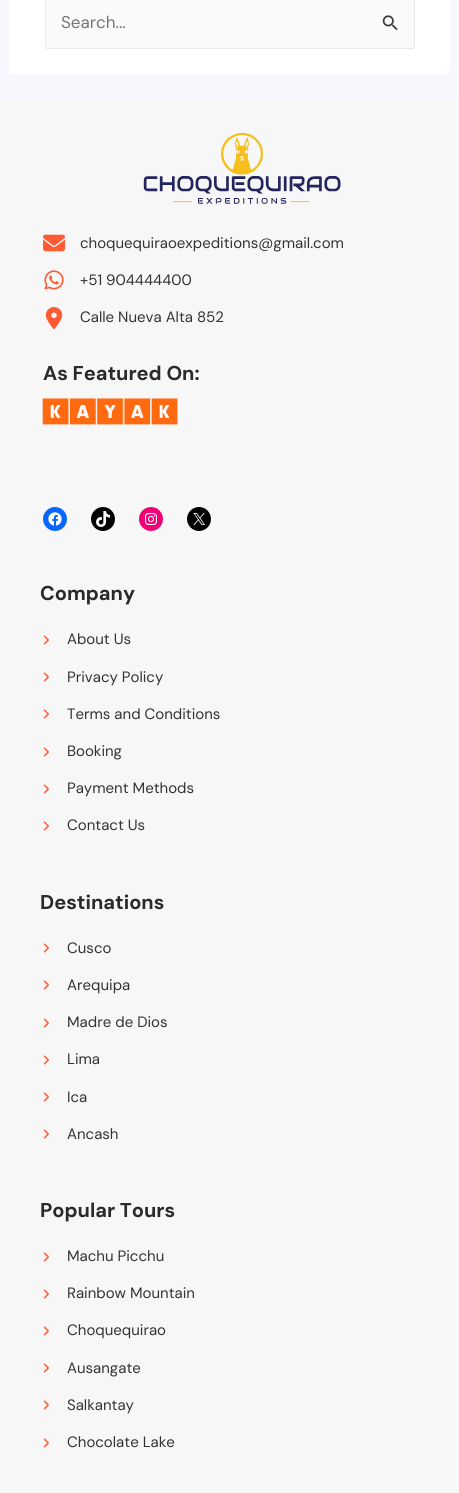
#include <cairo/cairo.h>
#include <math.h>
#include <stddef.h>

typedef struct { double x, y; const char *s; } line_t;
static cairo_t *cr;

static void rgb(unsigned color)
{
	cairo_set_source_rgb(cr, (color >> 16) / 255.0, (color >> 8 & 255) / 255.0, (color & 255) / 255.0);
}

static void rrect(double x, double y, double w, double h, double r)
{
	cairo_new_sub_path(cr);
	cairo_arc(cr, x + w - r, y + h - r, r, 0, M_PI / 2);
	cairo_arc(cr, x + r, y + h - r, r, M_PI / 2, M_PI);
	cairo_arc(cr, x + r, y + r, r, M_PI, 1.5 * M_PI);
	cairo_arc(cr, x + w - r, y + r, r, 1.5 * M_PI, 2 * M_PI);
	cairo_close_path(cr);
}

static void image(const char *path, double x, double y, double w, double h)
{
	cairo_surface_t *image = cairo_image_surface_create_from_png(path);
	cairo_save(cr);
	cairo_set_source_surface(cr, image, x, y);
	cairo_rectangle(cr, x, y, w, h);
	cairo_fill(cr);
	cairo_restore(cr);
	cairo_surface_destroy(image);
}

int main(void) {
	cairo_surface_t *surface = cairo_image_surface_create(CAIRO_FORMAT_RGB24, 459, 1493);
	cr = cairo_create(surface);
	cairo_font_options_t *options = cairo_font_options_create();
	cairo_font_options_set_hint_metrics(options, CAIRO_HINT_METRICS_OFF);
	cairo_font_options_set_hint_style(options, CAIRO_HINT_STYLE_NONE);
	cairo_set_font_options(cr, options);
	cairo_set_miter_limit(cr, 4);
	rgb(0xf9f6fe);
	cairo_paint(cr);
	rgb(0xffffff);
	cairo_rectangle(cr, 9, 0, 441, 74);
	cairo_fill(cr);
	rgb(0xfafafa);
	rrect(45.5, -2.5, 369, 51, 1.5);
	cairo_fill_preserve(cr);
	rgb(0xeaeaea);
	cairo_set_line_width(cr, 1);
	cairo_stroke(cr);
	image("img/1.png", 382, 15, 16, 16);
	rgb(0xf7f7f7);
	cairo_rectangle(cr, 0, 100, 459, 1393);
	cairo_fill(cr);
	image("img/2.png", 143, 132, 198, 72);
	image("img/3.png", 43, 234, 22, 18);
	image("img/4.png", 44, 270, 20, 20);
	image("img/5.png", 45, 307, 18, 22);
	image("img/6.png", 42, 398, 136, 27);
	rgb(0x0866ff);
	cairo_arc(cr, 55, 519, 12, 0, 2 * M_PI);
	cairo_fill(cr);
	image("img/7.png", 48, 512, 14, 14);
	rgb(0x000000);
	cairo_arc(cr, 103, 519, 12, 0, 2 * M_PI);
	cairo_fill(cr);
	image("img/8.png", 96, 511, 14, 16);
	rgb(0xf00075);
	cairo_arc(cr, 151, 519, 12, 0, 2 * M_PI);
	cairo_fill(cr);
	image("img/9.png", 145, 513, 12, 12);
	rgb(0x000000);
	cairo_arc(cr, 199, 519, 12, 0, 2 * M_PI);
	cairo_fill(cr);
	image("img/10.png", 193, 513, 12, 12);
	image("img/11.png", 43, 635, 6, 10);
	image("img/11.png", 43, 672, 6, 10);
	image("img/11.png", 43, 709, 6, 10);
	image("img/11.png", 43, 747, 6, 10);
	image("img/11.png", 43, 784, 6, 10);
	image("img/11.png", 43, 821, 6, 10);
	image("img/11.png", 43, 943, 6, 10);
	image("img/11.png", 43, 980, 6, 10);
	image("img/11.png", 43, 1018, 6, 10);
	image("img/11.png", 43, 1055, 6, 10);
	image("img/11.png", 43, 1092, 6, 10);
	image("img/11.png", 43, 1129, 6, 10);
	image("img/11.png", 43, 1252, 6, 10);
	image("img/11.png", 43, 1289, 6, 10);
	image("img/11.png", 43, 1326, 6, 10);
	image("img/11.png", 43, 1363, 6, 10);
	image("img/11.png", 43, 1400, 6, 10);
	image("img/11.png", 43, 1438, 6, 10);
	cairo_select_font_face(cr, "DM Sans", CAIRO_FONT_SLANT_NORMAL, CAIRO_FONT_WEIGHT_NORMAL);
	cairo_set_font_size(cr, 17);
	rgb(0x757575);
	cairo_move_to(cr, 61, 28);
	cairo_show_text(cr, "Search...");
	cairo_set_font_size(cr, 15);
	rgb(0x333333);
	{
		static const line_t items[] = {
			{80, 248, "choquequiraoexpeditions@gmail.com"},
			{80, 285, "+51 904444400"},
			{80, 322, "Calle Nueva Alta 852"},
		};
		for (size_t i = 0; i < sizeof items / sizeof *items; i++) {
			cairo_move_to(cr, items[i].x, items[i].y);
			cairo_show_text(cr, items[i].s);
		}
	}
	cairo_select_font_face(cr, "DM Sans", CAIRO_FONT_SLANT_NORMAL, CAIRO_FONT_WEIGHT_BOLD);
	cairo_set_font_size(cr, 20);
	rgb(0x2a2a2a);
	cairo_move_to(cr, 43, 380);
	cairo_show_text(cr, "As Featured On:");
	cairo_move_to(cr, 40, 600);
	cairo_show_text(cr, "Company");
	cairo_select_font_face(cr, "DM Sans", CAIRO_FONT_SLANT_NORMAL, CAIRO_FONT_WEIGHT_NORMAL);
	cairo_set_font_size(cr, 15);
	rgb(0x333333);
	{
		static const line_t items[] = {
			{67, 644, "About Us"},
			{67, 682, "Privacy Policy"},
			{67, 719, "Terms and Conditions"},
			{67, 756, "Booking"},
			{67, 793, "Payment Methods"},
			{67, 830, "Contact Us"},
		};
		for (size_t i = 0; i < sizeof items / sizeof *items; i++) {
			cairo_move_to(cr, items[i].x, items[i].y);
			cairo_show_text(cr, items[i].s);
		}
	}
	cairo_select_font_face(cr, "DM Sans", CAIRO_FONT_SLANT_NORMAL, CAIRO_FONT_WEIGHT_BOLD);
	cairo_set_font_size(cr, 20);
	rgb(0x2a2a2a);
	cairo_move_to(cr, 40, 909);
	cairo_show_text(cr, "Destinations");
	cairo_select_font_face(cr, "DM Sans", CAIRO_FONT_SLANT_NORMAL, CAIRO_FONT_WEIGHT_NORMAL);
	cairo_set_font_size(cr, 15);
	rgb(0x333333);
	{
		static const line_t items[] = {
			{67, 953, "Cusco"},
			{67, 990, "Arequipa"},
			{67, 1027, "Madre de Dios"},
			{67, 1064, "Lima"},
			{67, 1102, "Ica"},
			{67, 1139, "Ancash"},
		};
		for (size_t i = 0; i < sizeof items / sizeof *items; i++) {
			cairo_move_to(cr, items[i].x, items[i].y);
			cairo_show_text(cr, items[i].s);
		}
	}
	cairo_select_font_face(cr, "DM Sans", CAIRO_FONT_SLANT_NORMAL, CAIRO_FONT_WEIGHT_BOLD);
	cairo_set_font_size(cr, 20);
	rgb(0x2a2a2a);
	cairo_move_to(cr, 40, 1217);
	cairo_show_text(cr, "Popular Tours");
	cairo_select_font_face(cr, "DM Sans", CAIRO_FONT_SLANT_NORMAL, CAIRO_FONT_WEIGHT_NORMAL);
	cairo_set_font_size(cr, 15);
	rgb(0x333333);
	{
		static const line_t items[] = {
			{67, 1261, "Machu Picchu"},
			{67, 1298, "Rainbow Mountain"},
			{67, 1335, "Choquequirao"},
			{67, 1373, "Ausangate"},
			{67, 1410, "Salkantay"},
			{67, 1447, "Chocolate Lake"},
		};
		for (size_t i = 0; i < sizeof items / sizeof *items; i++) {
			cairo_move_to(cr, items[i].x, items[i].y);
			cairo_show_text(cr, items[i].s);
		}
	}
	cairo_surface_write_to_png(surface, "page.png");
	cairo_font_options_destroy(options);
	cairo_destroy(cr);
	cairo_surface_destroy(surface);
	return 0;
}
